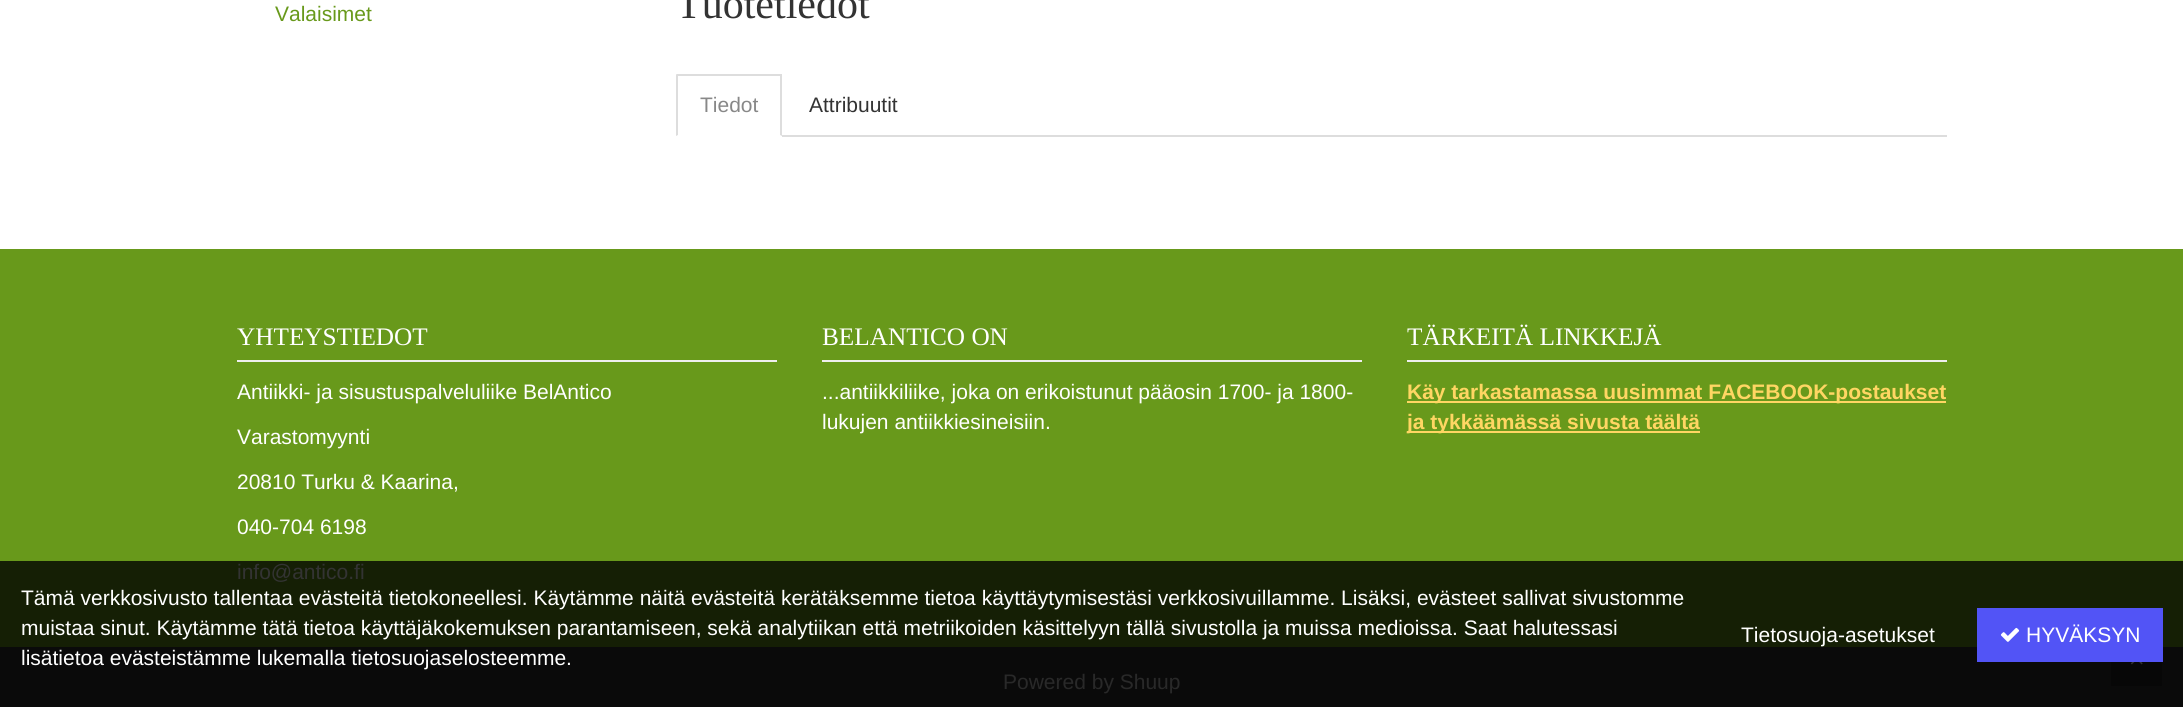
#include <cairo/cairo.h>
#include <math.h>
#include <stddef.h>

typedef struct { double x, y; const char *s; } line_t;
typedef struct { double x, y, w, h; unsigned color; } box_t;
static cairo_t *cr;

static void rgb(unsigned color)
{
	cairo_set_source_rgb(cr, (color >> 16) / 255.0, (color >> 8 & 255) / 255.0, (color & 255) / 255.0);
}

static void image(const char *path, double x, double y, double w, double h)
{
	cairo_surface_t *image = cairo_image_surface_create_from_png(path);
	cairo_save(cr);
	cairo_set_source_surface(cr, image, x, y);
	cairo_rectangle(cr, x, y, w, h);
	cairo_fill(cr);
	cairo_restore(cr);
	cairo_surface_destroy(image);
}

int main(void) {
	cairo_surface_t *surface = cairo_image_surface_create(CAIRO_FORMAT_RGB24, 2183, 707);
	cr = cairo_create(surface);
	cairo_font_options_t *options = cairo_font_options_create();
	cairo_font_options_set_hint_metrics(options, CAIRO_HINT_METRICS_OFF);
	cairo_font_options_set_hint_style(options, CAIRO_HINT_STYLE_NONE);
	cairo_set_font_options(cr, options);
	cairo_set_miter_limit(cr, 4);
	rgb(0xffffff);
	cairo_paint(cr);
	rgb(0xdddddd);
	cairo_rectangle(cr, 782, 135, 1165, 2);
	cairo_fill(cr);
	cairo_rectangle(cr, 677, 74, 105, 2);
	cairo_fill(cr);
	cairo_new_path(cr);
	cairo_move_to(cr, 782, 74);
	cairo_line_to(cr, 782, 136);
	cairo_line_to(cr, 780, 135);
	cairo_line_to(cr, 780, 75);
	cairo_close_path(cr);
	cairo_fill(cr);
	cairo_new_path(cr);
	cairo_move_to(cr, 676, 136);
	cairo_line_to(cr, 676, 74);
	cairo_line_to(cr, 678, 75);
	cairo_line_to(cr, 678, 135);
	cairo_close_path(cr);
	cairo_fill(cr);
	rgb(0x0a0a0a);
	cairo_rectangle(cr, 0, 647, 2183, 60);
	cairo_fill(cr);
	rgb(0x070707);
	cairo_rectangle(cr, 2111, 662, 51, 24);
	cairo_fill(cr);
	image("img/1.png", 2130, 662, 13, 3);
	{
		static const box_t items[] = {
			{0, 249, 2183, 312, 0x68991b},
			{0, 561, 2183, 86, 0x151f05},
			{237, 360, 540, 2, 0xeeeeee},
			{822, 360, 540, 2, 0xeeeeee},
			{1407, 360, 540, 2, 0xeeeeee},
			{1407, 401, 539, 2, 0xffd663},
			{1407, 431, 293, 2, 0xffd663},
			{1977, 608, 186, 54, 0x5254f6},
		};
		for (size_t i = 0; i < sizeof items / sizeof *items; i++) {
			rgb(items[i].color);
			cairo_rectangle(cr, items[i].x, items[i].y, items[i].w, items[i].h);
			cairo_fill(cr);
		}
	}
	image("img/2.png", 2000, 627, 20, 15);
	cairo_select_font_face(cr, "Liberation Sans", CAIRO_FONT_SLANT_NORMAL, CAIRO_FONT_WEIGHT_NORMAL);
	cairo_set_font_size(cr, 21);
	rgb(0x68991b);
	cairo_move_to(cr, 275, 21);
	cairo_show_text(cr, "Valaisimet");
	cairo_select_font_face(cr, "Liberation Serif", CAIRO_FONT_SLANT_NORMAL, CAIRO_FONT_WEIGHT_NORMAL);
	cairo_set_font_size(cr, 42);
	rgb(0x333333);
	cairo_move_to(cr, 676, 18);
	cairo_show_text(cr, "Tuotetiedot");
	cairo_select_font_face(cr, "Liberation Sans", CAIRO_FONT_SLANT_NORMAL, CAIRO_FONT_WEIGHT_NORMAL);
	cairo_set_font_size(cr, 21);
	rgb(0x888888);
	cairo_move_to(cr, 700, 112);
	cairo_show_text(cr, "Tiedot");
	rgb(0x333333);
	cairo_move_to(cr, 809, 112);
	cairo_show_text(cr, "Attribuutit");
	cairo_select_font_face(cr, "Liberation Serif", CAIRO_FONT_SLANT_NORMAL, CAIRO_FONT_WEIGHT_NORMAL);
	cairo_set_font_size(cr, 25.25);
	rgb(0xffffff);
	cairo_move_to(cr, 237, 345);
	cairo_show_text(cr, "YHTEYSTIEDOT");
	cairo_select_font_face(cr, "Liberation Sans", CAIRO_FONT_SLANT_NORMAL, CAIRO_FONT_WEIGHT_NORMAL);
	cairo_set_font_size(cr, 21);
	{
		static const line_t items[] = {
			{237, 399, "Antiikki- ja sisustuspalveluliike BelAntico"},
			{237, 444, "Varastomyynti"},
			{237, 489, "20810 Turku & Kaarina,"},
			{237, 534, "040-704 6198"},
		};
		for (size_t i = 0; i < sizeof items / sizeof *items; i++) {
			cairo_move_to(cr, items[i].x, items[i].y);
			cairo_show_text(cr, items[i].s);
		}
	}
	rgb(0x333333);
	cairo_move_to(cr, 237, 579);
	cairo_show_text(cr, "info@antico.fi");
	cairo_select_font_face(cr, "Liberation Serif", CAIRO_FONT_SLANT_NORMAL, CAIRO_FONT_WEIGHT_NORMAL);
	cairo_set_font_size(cr, 25.25);
	rgb(0xffffff);
	cairo_move_to(cr, 822, 345);
	cairo_show_text(cr, "BELANTICO ON");
	cairo_select_font_face(cr, "Liberation Sans", CAIRO_FONT_SLANT_NORMAL, CAIRO_FONT_WEIGHT_NORMAL);
	cairo_set_font_size(cr, 21);
	cairo_move_to(cr, 822, 399);
	cairo_show_text(cr, "...antiikkiliike, joka on erikoistunut pääosin 1700- ja 1800-");
	cairo_move_to(cr, 822, 429);
	cairo_show_text(cr, "lukujen antiikkiesineisiin.");
	cairo_select_font_face(cr, "Liberation Serif", CAIRO_FONT_SLANT_NORMAL, CAIRO_FONT_WEIGHT_NORMAL);
	cairo_set_font_size(cr, 25.25);
	cairo_move_to(cr, 1407, 345);
	cairo_show_text(cr, "TÄRKEITÄ LINKKEJÄ");
	cairo_select_font_face(cr, "Liberation Sans", CAIRO_FONT_SLANT_NORMAL, CAIRO_FONT_WEIGHT_BOLD);
	cairo_set_font_size(cr, 21);
	rgb(0xffd663);
	cairo_move_to(cr, 1407, 399);
	cairo_show_text(cr, "Käy tarkastamassa uusimmat FACEBOOK-postaukset");
	cairo_move_to(cr, 1407, 429);
	cairo_show_text(cr, "ja tykkäämässä sivusta täältä");
	cairo_select_font_face(cr, "Liberation Sans", CAIRO_FONT_SLANT_NORMAL, CAIRO_FONT_WEIGHT_NORMAL);
	rgb(0x292929);
	cairo_move_to(cr, 1003, 689);
	cairo_show_text(cr, "Powered by Shuup");
	rgb(0xffffff);
	{
		static const line_t items[] = {
			{21, 605, "Tämä verkkosivusto tallentaa evästeitä tietokoneellesi. Käytämme näitä evästeitä kerätäksemme tietoa käyttäytymisestäsi verkkosivuillamme. Lisäksi, evästeet sallivat sivustomme"},
			{21, 635, "muistaa sinut. Käytämme tätä tietoa käyttäjäkokemuksen parantamiseen, sekä analytiikan että metriikoiden käsittelyyn tällä sivustolla ja muissa medioissa. Saat halutessasi"},
			{21, 665, "lisätietoa evästeistämme lukemalla tietosuojaselosteemme."},
			{1741, 642, "Tietosuoja-asetukset"},
			{2026, 642, "HYVÄKSYN"},
		};
		for (size_t i = 0; i < sizeof items / sizeof *items; i++) {
			cairo_move_to(cr, items[i].x, items[i].y);
			cairo_show_text(cr, items[i].s);
		}
	}
	cairo_surface_write_to_png(surface, "page.png");
	cairo_font_options_destroy(options);
	cairo_destroy(cr);
	cairo_surface_destroy(surface);
	return 0;
}
